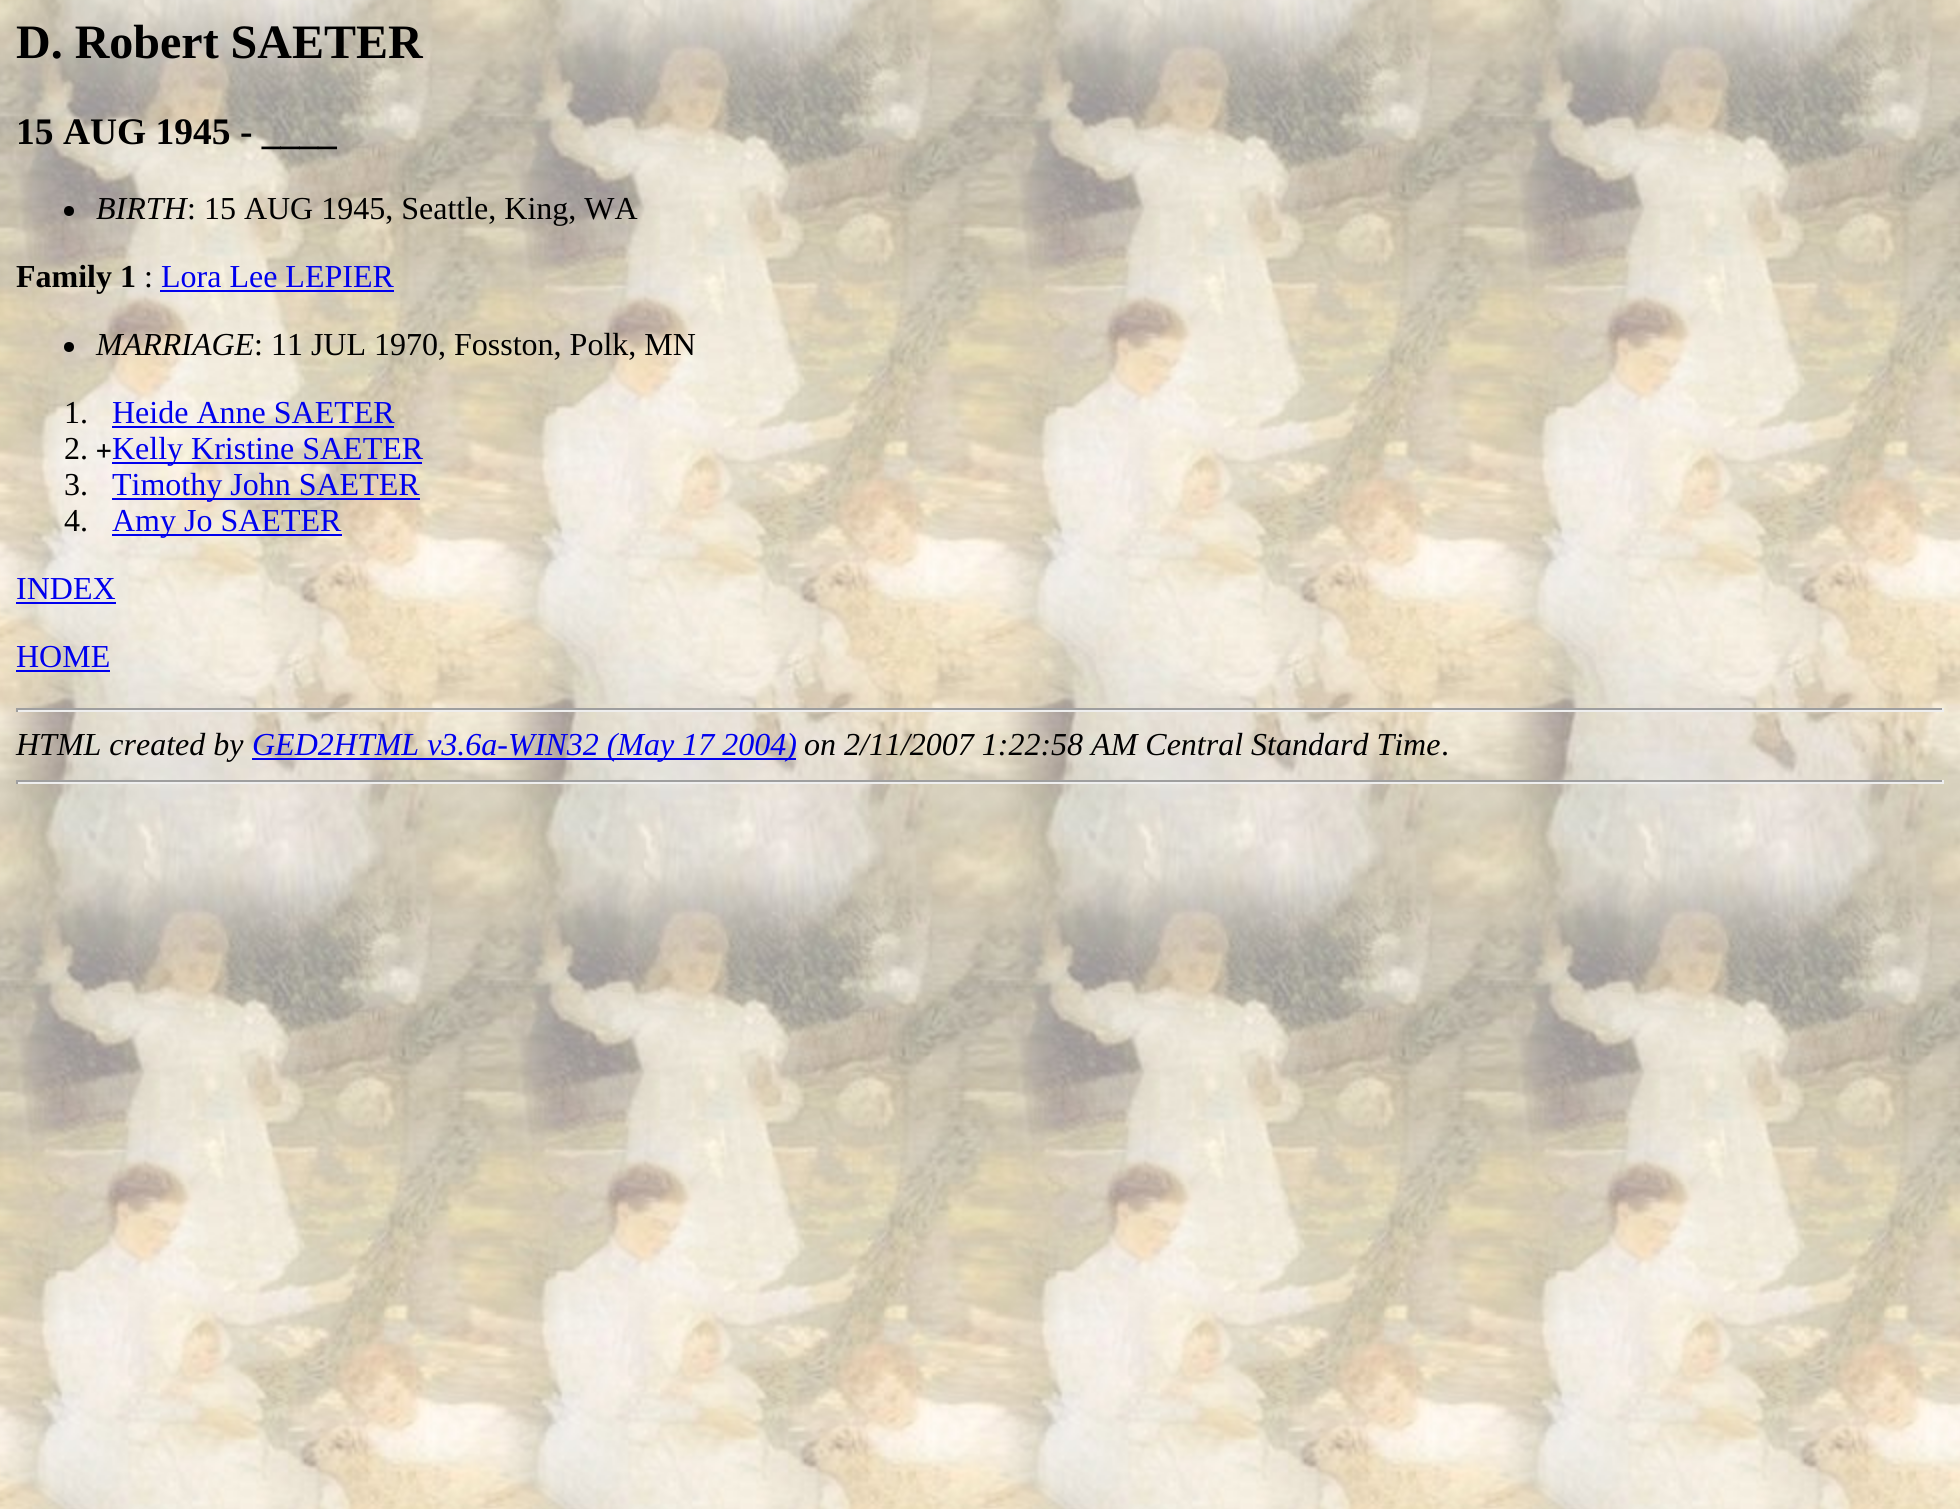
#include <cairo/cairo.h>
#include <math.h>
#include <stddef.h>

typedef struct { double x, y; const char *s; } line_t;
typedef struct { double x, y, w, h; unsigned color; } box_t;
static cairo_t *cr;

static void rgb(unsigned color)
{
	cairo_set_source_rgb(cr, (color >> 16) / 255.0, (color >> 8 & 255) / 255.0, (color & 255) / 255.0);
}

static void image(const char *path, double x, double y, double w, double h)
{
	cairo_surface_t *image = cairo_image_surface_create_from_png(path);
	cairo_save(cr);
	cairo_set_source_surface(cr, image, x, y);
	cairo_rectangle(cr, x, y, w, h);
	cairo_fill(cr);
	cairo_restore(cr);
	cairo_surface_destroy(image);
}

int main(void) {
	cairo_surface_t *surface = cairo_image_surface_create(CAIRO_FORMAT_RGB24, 1960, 1509);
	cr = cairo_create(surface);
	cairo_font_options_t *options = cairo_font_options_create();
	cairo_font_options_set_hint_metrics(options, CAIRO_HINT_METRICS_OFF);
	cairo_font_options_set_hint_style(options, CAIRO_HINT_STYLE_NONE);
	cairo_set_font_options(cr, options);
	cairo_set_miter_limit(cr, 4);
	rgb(0xffffff);
	cairo_paint(cr);
	image("img/1.png", 0, 0, 1960, 1509);
	rgb(0x000000);
	cairo_arc(cr, 69, 211, 5, 0, 2 * M_PI);
	cairo_fill(cr);
	rgb(0x0000ee);
	cairo_rectangle(cr, 160, 290, 234, 2);
	cairo_fill(cr);
	rgb(0x000000);
	cairo_arc(cr, 69, 347, 5, 0, 2 * M_PI);
	cairo_fill(cr);
	{
		static const box_t items[] = {
			{112, 426, 282, 2, 0x0000ee},
			{112, 462, 310, 2, 0x0000ee},
			{112, 498, 308, 2, 0x0000ee},
			{112, 534, 230, 2, 0x0000ee},
			{16, 602, 100, 2, 0x0000ee},
			{16, 670, 94, 2, 0x0000ee},
			{16, 708, 1928, 2, 0x9f9f9f},
			{1942, 708, 2, 4, 0xeeeeee},
			{16, 710, 1928, 2, 0xeeeeee},
			{16, 708, 2, 4, 0x9f9f9f},
			{252, 758, 544, 2, 0x0000ee},
			{16, 780, 1928, 2, 0x9f9f9f},
			{1942, 780, 2, 4, 0xeeeeee},
			{16, 782, 1928, 2, 0xeeeeee},
			{16, 780, 2, 4, 0x9f9f9f},
		};
		for (size_t i = 0; i < sizeof items / sizeof *items; i++) {
			rgb(items[i].color);
			cairo_rectangle(cr, items[i].x, items[i].y, items[i].w, items[i].h);
			cairo_fill(cr);
		}
	}
	cairo_select_font_face(cr, "Liberation Serif", CAIRO_FONT_SLANT_NORMAL, CAIRO_FONT_WEIGHT_BOLD);
	cairo_set_font_size(cr, 48);
	rgb(0x000000);
	cairo_move_to(cr, 16, 58);
	cairo_show_text(cr, "D. Robert SAETER");
	cairo_set_font_size(cr, 37.5);
	cairo_move_to(cr, 16, 144);
	cairo_show_text(cr, "15 AUG 1945 - ____");
	cairo_select_font_face(cr, "Liberation Serif", CAIRO_FONT_SLANT_ITALIC, CAIRO_FONT_WEIGHT_NORMAL);
	cairo_set_font_size(cr, 32);
	cairo_move_to(cr, 96, 219);
	cairo_show_text(cr, "BIRTH");
	cairo_select_font_face(cr, "Liberation Serif", CAIRO_FONT_SLANT_NORMAL, CAIRO_FONT_WEIGHT_NORMAL);
	cairo_move_to(cr, 187, 219);
	cairo_show_text(cr, ": 15 AUG 1945, Seattle, King, WA");
	cairo_select_font_face(cr, "Liberation Serif", CAIRO_FONT_SLANT_NORMAL, CAIRO_FONT_WEIGHT_BOLD);
	cairo_move_to(cr, 16, 287);
	cairo_show_text(cr, "Family 1");
	cairo_select_font_face(cr, "Liberation Serif", CAIRO_FONT_SLANT_NORMAL, CAIRO_FONT_WEIGHT_NORMAL);
	cairo_move_to(cr, 144, 287);
	cairo_show_text(cr, ":");
	rgb(0x0000ee);
	cairo_move_to(cr, 161, 287);
	cairo_show_text(cr, "Lora Lee LEPIER");
	cairo_select_font_face(cr, "Liberation Serif", CAIRO_FONT_SLANT_ITALIC, CAIRO_FONT_WEIGHT_NORMAL);
	rgb(0x000000);
	cairo_move_to(cr, 96, 355);
	cairo_show_text(cr, "MARRIAGE");
	cairo_select_font_face(cr, "Liberation Serif", CAIRO_FONT_SLANT_NORMAL, CAIRO_FONT_WEIGHT_NORMAL);
	cairo_move_to(cr, 254, 355);
	cairo_show_text(cr, ": 11 JUL 1970, Fosston, Polk, MN");
	cairo_move_to(cr, 64, 423);
	cairo_show_text(cr, "1.");
	rgb(0x0000ee);
	cairo_move_to(cr, 112, 423);
	cairo_show_text(cr, "Heide Anne SAETER");
	rgb(0x000000);
	cairo_move_to(cr, 64, 459);
	cairo_show_text(cr, "2.");
	cairo_select_font_face(cr, "DejaVu Sans Mono", CAIRO_FONT_SLANT_NORMAL, CAIRO_FONT_WEIGHT_NORMAL);
	cairo_set_font_size(cr, 26);
	cairo_move_to(cr, 96, 459);
	cairo_show_text(cr, "+");
	cairo_select_font_face(cr, "Liberation Serif", CAIRO_FONT_SLANT_NORMAL, CAIRO_FONT_WEIGHT_NORMAL);
	cairo_set_font_size(cr, 32);
	rgb(0x0000ee);
	cairo_move_to(cr, 112, 459);
	cairo_show_text(cr, "Kelly Kristine SAETER");
	rgb(0x000000);
	cairo_move_to(cr, 64, 495);
	cairo_show_text(cr, "3.");
	rgb(0x0000ee);
	cairo_move_to(cr, 112, 495);
	cairo_show_text(cr, "Timothy John SAETER");
	rgb(0x000000);
	cairo_move_to(cr, 64, 531);
	cairo_show_text(cr, "4.");
	rgb(0x0000ee);
	{
		static const line_t items[] = {
			{112, 531, "Amy Jo SAETER"},
			{16, 599, "INDEX"},
			{16, 667, "HOME"},
		};
		for (size_t i = 0; i < sizeof items / sizeof *items; i++) {
			cairo_move_to(cr, items[i].x, items[i].y);
			cairo_show_text(cr, items[i].s);
		}
	}
	cairo_select_font_face(cr, "Liberation Serif", CAIRO_FONT_SLANT_ITALIC, CAIRO_FONT_WEIGHT_NORMAL);
	rgb(0x000000);
	cairo_move_to(cr, 16, 755);
	cairo_show_text(cr, "HTML created by");
	rgb(0x0000ee);
	cairo_move_to(cr, 252, 755);
	cairo_show_text(cr, "GED2HTML v3.6a-WIN32 (May 17 2004)");
	rgb(0x000000);
	cairo_move_to(cr, 804, 755);
	cairo_show_text(cr, "on 2/11/2007 1:22:58 AM Central Standard Time");
	cairo_select_font_face(cr, "Liberation Serif", CAIRO_FONT_SLANT_NORMAL, CAIRO_FONT_WEIGHT_NORMAL);
	cairo_move_to(cr, 1441, 755);
	cairo_show_text(cr, ".");
	cairo_surface_write_to_png(surface, "page.png");
	cairo_font_options_destroy(options);
	cairo_destroy(cr);
	cairo_surface_destroy(surface);
	return 0;
}
